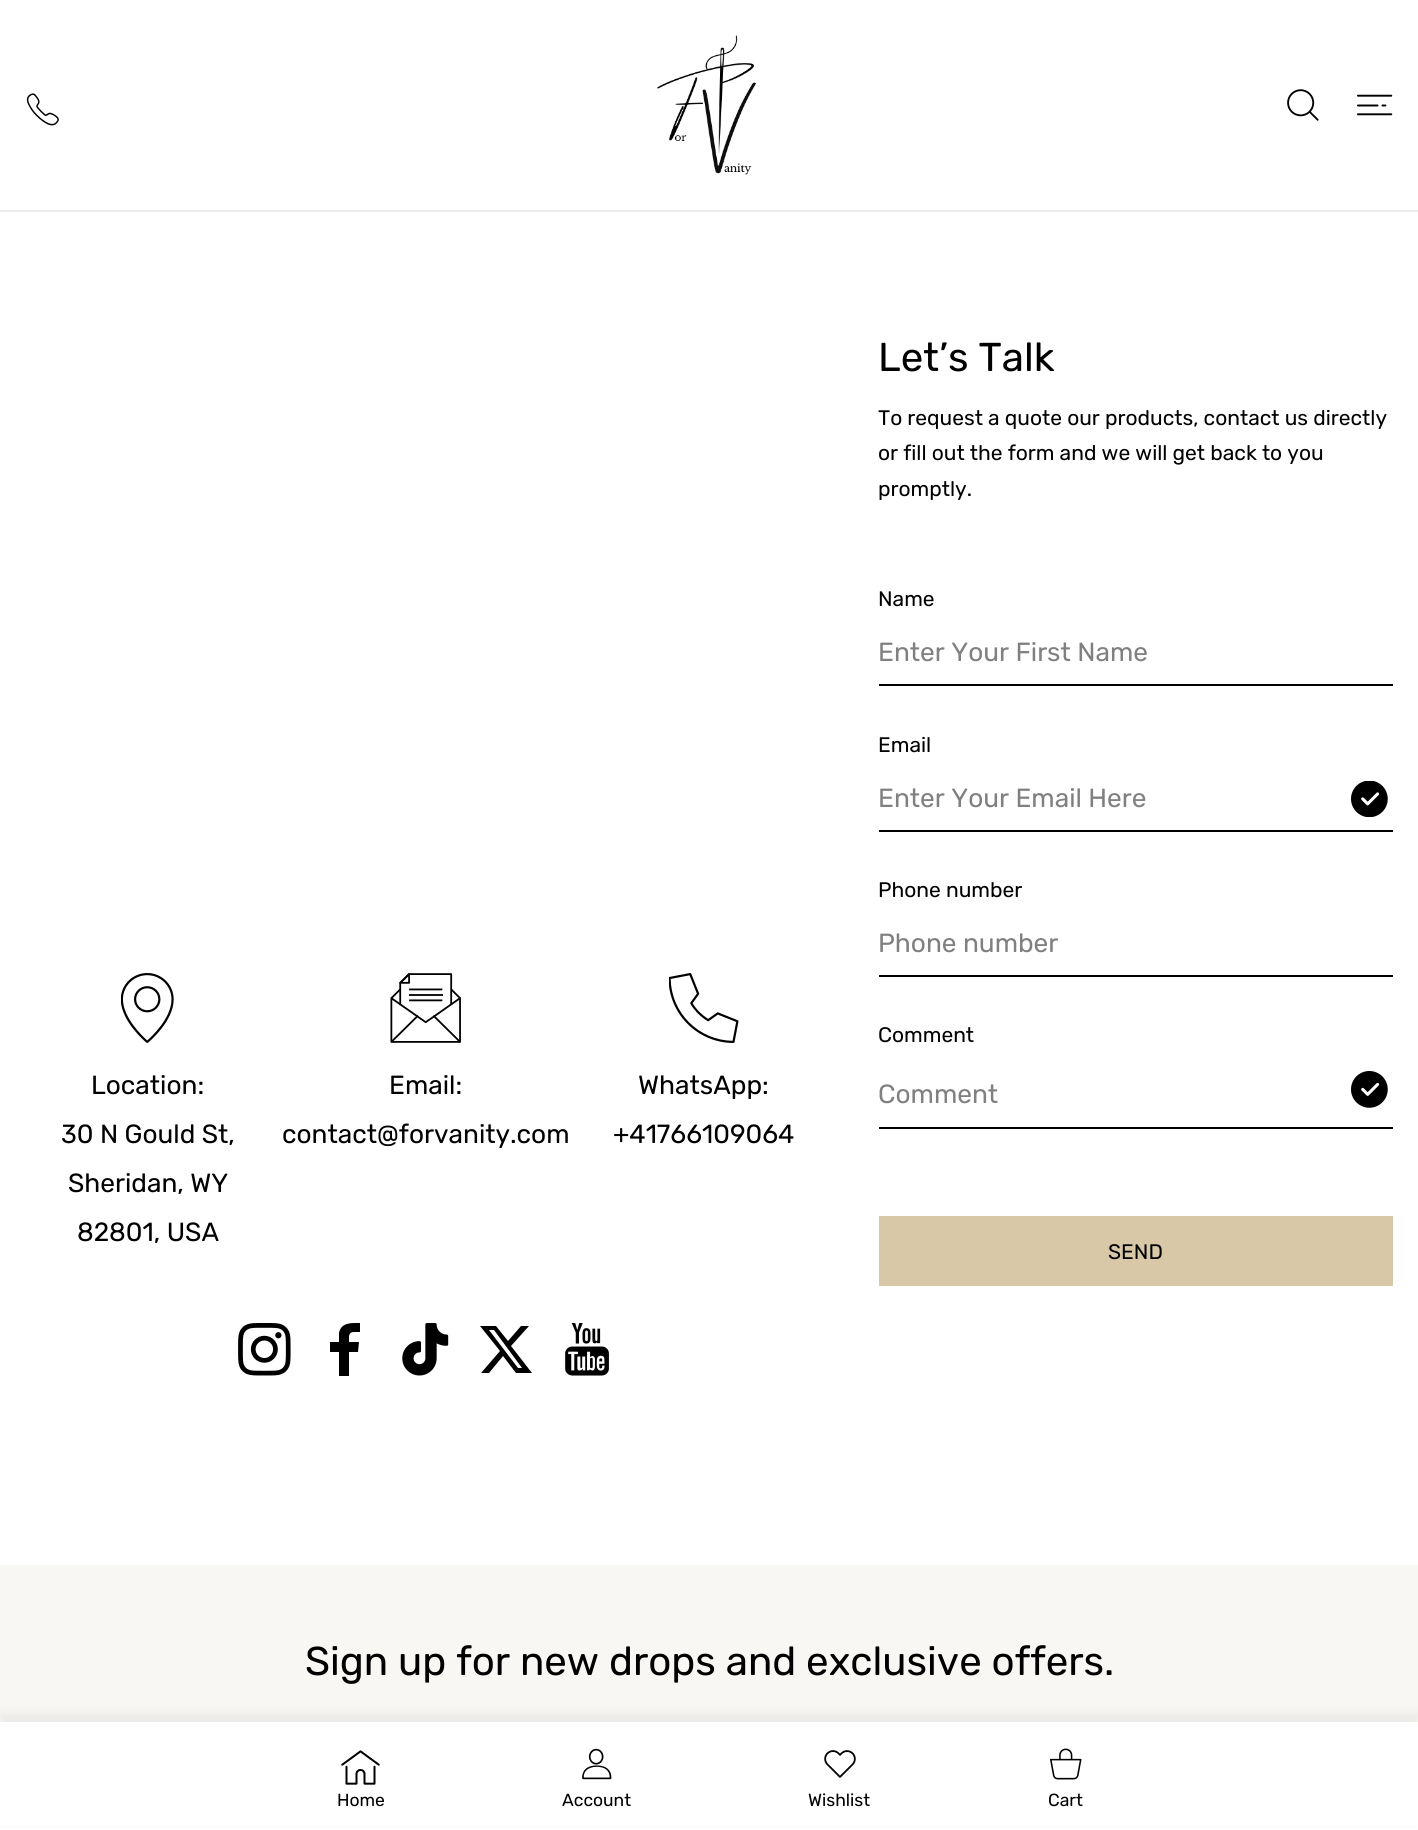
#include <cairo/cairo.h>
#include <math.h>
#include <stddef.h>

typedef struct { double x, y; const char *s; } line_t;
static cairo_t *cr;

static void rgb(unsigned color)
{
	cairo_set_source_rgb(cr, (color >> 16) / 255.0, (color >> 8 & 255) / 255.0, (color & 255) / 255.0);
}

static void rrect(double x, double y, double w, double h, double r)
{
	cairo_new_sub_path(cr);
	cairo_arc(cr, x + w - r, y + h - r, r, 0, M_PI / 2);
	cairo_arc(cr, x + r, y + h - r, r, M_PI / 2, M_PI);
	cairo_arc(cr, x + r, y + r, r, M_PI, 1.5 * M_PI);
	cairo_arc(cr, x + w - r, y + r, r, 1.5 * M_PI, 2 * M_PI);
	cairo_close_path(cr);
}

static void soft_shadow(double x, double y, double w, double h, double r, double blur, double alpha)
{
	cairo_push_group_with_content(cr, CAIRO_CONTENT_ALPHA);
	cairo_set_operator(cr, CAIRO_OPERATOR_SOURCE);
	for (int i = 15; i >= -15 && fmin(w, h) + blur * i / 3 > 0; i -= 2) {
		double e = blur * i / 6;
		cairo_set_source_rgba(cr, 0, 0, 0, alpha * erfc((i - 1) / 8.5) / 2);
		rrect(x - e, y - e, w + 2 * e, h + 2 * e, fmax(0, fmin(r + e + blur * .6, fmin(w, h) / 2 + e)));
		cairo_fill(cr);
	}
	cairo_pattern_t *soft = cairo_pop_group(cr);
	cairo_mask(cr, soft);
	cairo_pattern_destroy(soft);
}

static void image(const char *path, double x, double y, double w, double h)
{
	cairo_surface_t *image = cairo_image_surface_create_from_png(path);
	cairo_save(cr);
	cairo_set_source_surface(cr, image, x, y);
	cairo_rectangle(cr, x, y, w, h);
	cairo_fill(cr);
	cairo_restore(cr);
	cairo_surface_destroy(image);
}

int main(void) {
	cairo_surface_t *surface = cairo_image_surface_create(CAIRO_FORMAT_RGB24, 1418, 1830);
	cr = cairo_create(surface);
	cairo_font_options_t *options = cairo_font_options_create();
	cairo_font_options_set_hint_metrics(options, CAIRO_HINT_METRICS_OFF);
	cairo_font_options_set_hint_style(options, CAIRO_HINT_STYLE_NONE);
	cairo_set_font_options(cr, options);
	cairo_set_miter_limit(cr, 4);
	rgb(0xffffff);
	cairo_paint(cr);
	rgb(0xededed);
	cairo_rectangle(cr, 0, 210, 1418, 2);
	cairo_fill(cr);
	image("img/1.png", 26, 93, 33, 33);
	image("img/2.png", 657, 35, 99, 140);
	image("img/3.png", 1287, 89, 32, 32);
	image("img/4.png", 1357, 94, 36, 22);
	image("img/5.png", 121, 973, 53, 70);
	image("img/6.png", 390, 973, 71, 70);
	image("img/7.png", 669, 973, 70, 70);
	image("img/8.png", 238, 1323, 53, 53);
	rgb(0x000000);
	cairo_new_path(cr);
	cairo_move_to(cr, 354, 1332);
	cairo_line_to(cr, 360, 1332);
	cairo_line_to(cr, 360, 1323);
	cairo_curve_to(cr, 352, 1323, 341, 1322, 339, 1333);
	cairo_line_to(cr, 339, 1342);
	cairo_line_to(cr, 330, 1342);
	cairo_line_to(cr, 330, 1352);
	cairo_line_to(cr, 339, 1352);
	cairo_line_to(cr, 339, 1376);
	cairo_line_to(cr, 349, 1376);
	cairo_line_to(cr, 349, 1352);
	cairo_line_to(cr, 358, 1352);
	cairo_line_to(cr, 359, 1342);
	cairo_line_to(cr, 349, 1342);
	cairo_curve_to(cr, 349, 1337, 348, 1332, 354, 1332);
	cairo_close_path(cr);
	cairo_fill(cr);
	image("img/9.png", 402, 1323, 47, 53);
	cairo_new_path(cr);
	cairo_move_to(cr, 521, 1326);
	cairo_line_to(cr, 529, 1326);
	cairo_line_to(cr, 511, 1346);
	cairo_line_to(cr, 532, 1373);
	cairo_line_to(cr, 516, 1373);
	cairo_line_to(cr, 503, 1356);
	cairo_line_to(cr, 489, 1373);
	cairo_line_to(cr, 481, 1373);
	cairo_line_to(cr, 500, 1351);
	cairo_line_to(cr, 480, 1326);
	cairo_line_to(cr, 496, 1326);
	cairo_line_to(cr, 508, 1341);
	cairo_close_path(cr);
	cairo_move_to(cr, 518, 1368);
	cairo_line_to(cr, 522, 1368);
	cairo_line_to(cr, 494, 1330);
	cairo_line_to(cr, 489, 1330);
	cairo_close_path(cr);
	cairo_fill(cr);
	image("img/10.png", 565, 1323, 44, 53);
	cairo_rectangle(cr, 879, 684, 514, 2);
	cairo_fill(cr);
	cairo_rectangle(cr, 879, 830, 514, 2);
	cairo_fill(cr);
	image("img/11.png", 1351, 781, 37, 36);
	cairo_rectangle(cr, 879, 975, 514, 2);
	cairo_fill(cr);
	cairo_rectangle(cr, 879, 1127, 514, 2);
	cairo_fill(cr);
	image("img/12.png", 1351, 1071, 37, 37);
	rgb(0xd8c8a8);
	cairo_rectangle(cr, 879, 1216, 514, 70);
	cairo_fill(cr);
	rgb(0xf8f7f4);
	cairo_rectangle(cr, 0, 1565, 1418, 157);
	cairo_fill(cr);
	rgb(0x000000);
	soft_shadow(0, 1713, 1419, 109, 0, 4.5, 0.05);
	rgb(0xffffff);
	cairo_rectangle(cr, 0, 1722, 1418, 104);
	cairo_fill(cr);
	image("img/13.png", 341, 1750, 39, 35);
	image("img/14.png", 582, 1748, 30, 32);
	image("img/15.png", 824, 1750, 32, 28);
	image("img/16.png", 1050, 1748, 32, 32);
	cairo_select_font_face(cr, "Rubik", CAIRO_FONT_SLANT_NORMAL, CAIRO_FONT_WEIGHT_NORMAL);
	cairo_set_font_size(cr, 26.25);
	rgb(0x000000);
	{
		static const line_t items[] = {
			{91, 1094, "Location:"},
			{61, 1143, "30 N Gould St,"},
			{68, 1192, "Sheridan, WY"},
			{77, 1241, "82801, USA"},
			{389, 1094, "Email:"},
			{282, 1143, "contact@forvanity.com"},
			{638, 1094, "WhatsApp:"},
			{613, 1143, "+41766109064"},
		};
		for (size_t i = 0; i < sizeof items / sizeof *items; i++) {
			cairo_move_to(cr, items[i].x, items[i].y);
			cairo_show_text(cr, items[i].s);
		}
	}
	cairo_set_font_size(cr, 40.25);
	cairo_move_to(cr, 878, 371);
	cairo_show_text(cr, "Let’s Talk");
	cairo_set_font_size(cr, 21);
	{
		static const line_t items[] = {
			{878, 425, "To request a quote our products, contact us directly"},
			{878, 460, "or fill out the form and we will get back to you"},
			{878, 496, "promptly."},
			{878, 606, "Name"},
		};
		for (size_t i = 0; i < sizeof items / sizeof *items; i++) {
			cairo_move_to(cr, items[i].x, items[i].y);
			cairo_show_text(cr, items[i].s);
		}
	}
	cairo_set_font_size(cr, 26.25);
	rgb(0x808080);
	cairo_move_to(cr, 878, 661);
	cairo_show_text(cr, "Enter Your First Name");
	cairo_set_font_size(cr, 21);
	rgb(0x000000);
	cairo_move_to(cr, 878, 752);
	cairo_show_text(cr, "Email");
	cairo_set_font_size(cr, 26.25);
	rgb(0x808080);
	cairo_move_to(cr, 878, 807);
	cairo_show_text(cr, "Enter Your Email Here");
	cairo_set_font_size(cr, 21);
	rgb(0x000000);
	cairo_move_to(cr, 878, 897);
	cairo_show_text(cr, "Phone number");
	cairo_set_font_size(cr, 26.25);
	rgb(0x808080);
	cairo_move_to(cr, 878, 952);
	cairo_show_text(cr, "Phone number");
	cairo_set_font_size(cr, 21);
	rgb(0x000000);
	cairo_move_to(cr, 878, 1042);
	cairo_show_text(cr, "Comment");
	cairo_set_font_size(cr, 26.25);
	rgb(0x808080);
	cairo_move_to(cr, 878, 1103);
	cairo_show_text(cr, "Comment");
	cairo_set_font_size(cr, 21);
	rgb(0x000000);
	cairo_move_to(cr, 1108, 1259);
	cairo_show_text(cr, "SEND");
	cairo_set_font_size(cr, 40.25);
	cairo_move_to(cr, 305, 1675);
	cairo_show_text(cr, "Sign up for new drops and exclusive offers.");
	cairo_set_font_size(cr, 17.5);
	{
		static const line_t items[] = {
			{337, 1806, "Home"},
			{562, 1806, "Account"},
			{808, 1806, "Wishlist"},
			{1048, 1806, "Cart"},
		};
		for (size_t i = 0; i < sizeof items / sizeof *items; i++) {
			cairo_move_to(cr, items[i].x, items[i].y);
			cairo_show_text(cr, items[i].s);
		}
	}
	cairo_surface_write_to_png(surface, "page.png");
	cairo_font_options_destroy(options);
	cairo_destroy(cr);
	cairo_surface_destroy(surface);
	return 0;
}
